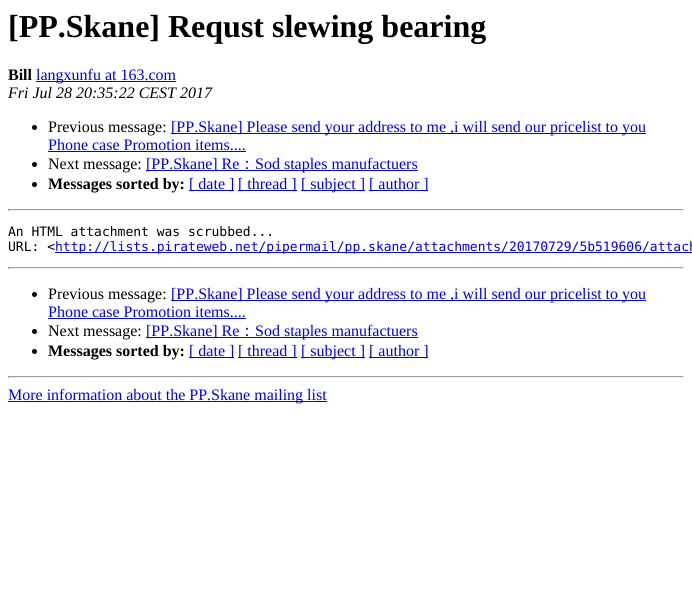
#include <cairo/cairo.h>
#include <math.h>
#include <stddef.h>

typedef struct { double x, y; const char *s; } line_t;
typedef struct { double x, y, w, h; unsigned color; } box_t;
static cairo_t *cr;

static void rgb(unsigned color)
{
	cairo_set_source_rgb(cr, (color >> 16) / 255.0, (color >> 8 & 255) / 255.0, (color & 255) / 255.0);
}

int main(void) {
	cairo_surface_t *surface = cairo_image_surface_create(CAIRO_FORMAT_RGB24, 692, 612);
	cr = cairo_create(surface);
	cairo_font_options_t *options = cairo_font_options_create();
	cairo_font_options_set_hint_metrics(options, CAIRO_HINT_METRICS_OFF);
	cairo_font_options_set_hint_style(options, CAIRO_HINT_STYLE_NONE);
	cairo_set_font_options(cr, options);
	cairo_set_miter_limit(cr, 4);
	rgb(0xffffff);
	cairo_paint(cr);
	rgb(0x0000ee);
	cairo_rectangle(cr, 36, 81, 140, 1);
	cairo_fill(cr);
	rgb(0x000000);
	cairo_arc(cr, 34.5, 127.5, 2.5, 0, 2 * M_PI);
	cairo_fill(cr);
	rgb(0x0000ee);
	cairo_rectangle(cr, 171, 133, 475, 1);
	cairo_fill(cr);
	cairo_rectangle(cr, 48, 151, 198, 1);
	cairo_fill(cr);
	rgb(0x000000);
	cairo_arc(cr, 34.5, 164.5, 2.5, 0, 2 * M_PI);
	cairo_fill(cr);
	rgb(0x0000ee);
	cairo_rectangle(cr, 146, 170, 272, 1);
	cairo_fill(cr);
	rgb(0x000000);
	cairo_arc(cr, 34.5, 184.5, 2.5, 0, 2 * M_PI);
	cairo_fill(cr);
	{
		static const box_t items[] = {
			{189, 190, 45, 1, 0x0000ee},
			{238, 190, 59, 1, 0x0000ee},
			{301, 190, 64, 1, 0x0000ee},
			{369, 190, 59, 1, 0x0000ee},
			{8, 209, 676, 1, 0x9f9f9f},
			{683, 209, 1, 2, 0xeeeeee},
			{8, 210, 676, 1, 0xeeeeee},
			{8, 209, 1, 2, 0x9f9f9f},
			{55, 252, 637, 1, 0x0000ee},
			{8, 267, 676, 1, 0x9f9f9f},
			{683, 267, 1, 2, 0xeeeeee},
			{8, 268, 676, 1, 0xeeeeee},
			{8, 267, 1, 2, 0x9f9f9f},
		};
		for (size_t i = 0; i < sizeof items / sizeof *items; i++) {
			rgb(items[i].color);
			cairo_rectangle(cr, items[i].x, items[i].y, items[i].w, items[i].h);
			cairo_fill(cr);
		}
	}
	rgb(0x000000);
	cairo_arc(cr, 34.5, 294.5, 2.5, 0, 2 * M_PI);
	cairo_fill(cr);
	rgb(0x0000ee);
	cairo_rectangle(cr, 171, 300, 475, 1);
	cairo_fill(cr);
	cairo_rectangle(cr, 48, 318, 198, 1);
	cairo_fill(cr);
	rgb(0x000000);
	cairo_arc(cr, 34.5, 331.5, 2.5, 0, 2 * M_PI);
	cairo_fill(cr);
	rgb(0x0000ee);
	cairo_rectangle(cr, 146, 337, 272, 1);
	cairo_fill(cr);
	rgb(0x000000);
	cairo_arc(cr, 34.5, 351.5, 2.5, 0, 2 * M_PI);
	cairo_fill(cr);
	{
		static const box_t items[] = {
			{189, 357, 45, 1, 0x0000ee},
			{238, 357, 59, 1, 0x0000ee},
			{301, 357, 64, 1, 0x0000ee},
			{369, 357, 59, 1, 0x0000ee},
			{8, 376, 676, 1, 0x9f9f9f},
			{683, 376, 1, 2, 0xeeeeee},
			{8, 377, 676, 1, 0xeeeeee},
			{8, 376, 1, 2, 0x9f9f9f},
			{8, 401, 319, 1, 0x0000ee},
		};
		for (size_t i = 0; i < sizeof items / sizeof *items; i++) {
			rgb(items[i].color);
			cairo_rectangle(cr, items[i].x, items[i].y, items[i].w, items[i].h);
			cairo_fill(cr);
		}
	}
	cairo_select_font_face(cr, "Liberation Serif", CAIRO_FONT_SLANT_NORMAL, CAIRO_FONT_WEIGHT_BOLD);
	cairo_set_font_size(cr, 32);
	rgb(0x000000);
	cairo_move_to(cr, 8, 37);
	cairo_show_text(cr, "[PP.Skane] Requst slewing bearing");
	cairo_set_font_size(cr, 16);
	cairo_move_to(cr, 8, 80);
	cairo_show_text(cr, "Bill");
	cairo_select_font_face(cr, "Liberation Serif", CAIRO_FONT_SLANT_NORMAL, CAIRO_FONT_WEIGHT_NORMAL);
	rgb(0x0000ee);
	cairo_move_to(cr, 36, 80);
	cairo_show_text(cr, "langxunfu at 163.com");
	cairo_select_font_face(cr, "Liberation Serif", CAIRO_FONT_SLANT_ITALIC, CAIRO_FONT_WEIGHT_NORMAL);
	rgb(0x000000);
	cairo_move_to(cr, 8, 98);
	cairo_show_text(cr, "Fri Jul 28 20:35:22 CEST 2017");
	cairo_select_font_face(cr, "Liberation Serif", CAIRO_FONT_SLANT_NORMAL, CAIRO_FONT_WEIGHT_NORMAL);
	cairo_move_to(cr, 48, 132);
	cairo_show_text(cr, "Previous message:");
	rgb(0x0000ee);
	cairo_move_to(cr, 171, 132);
	cairo_show_text(cr, "[PP.Skane] Please send your address to me ,i will send our pricelist to you");
	cairo_move_to(cr, 48, 150);
	cairo_show_text(cr, "Phone case Promotion items....");
	rgb(0x000000);
	cairo_move_to(cr, 48, 169);
	cairo_show_text(cr, "Next message:");
	rgb(0x0000ee);
	cairo_move_to(cr, 146, 169);
	cairo_show_text(cr, "[PP.Skane] Re");
	cairo_select_font_face(cr, "WenQuanYi Zen Hei Medium", CAIRO_FONT_SLANT_NORMAL, CAIRO_FONT_WEIGHT_NORMAL);
	cairo_move_to(cr, 239, 169);
	cairo_show_text(cr, "：");
	cairo_select_font_face(cr, "Liberation Serif", CAIRO_FONT_SLANT_NORMAL, CAIRO_FONT_WEIGHT_NORMAL);
	cairo_move_to(cr, 255, 169);
	cairo_show_text(cr, "Sod staples manufactuers");
	cairo_select_font_face(cr, "Liberation Serif", CAIRO_FONT_SLANT_NORMAL, CAIRO_FONT_WEIGHT_BOLD);
	rgb(0x000000);
	cairo_move_to(cr, 48, 189);
	cairo_show_text(cr, "Messages sorted by:");
	cairo_select_font_face(cr, "Liberation Serif", CAIRO_FONT_SLANT_NORMAL, CAIRO_FONT_WEIGHT_NORMAL);
	rgb(0x0000ee);
	{
		static const line_t items[] = {
			{189, 189, "[ date ]"},
			{238, 189, "[ thread ]"},
			{301, 189, "[ subject ]"},
			{369, 189, "[ author ]"},
		};
		for (size_t i = 0; i < sizeof items / sizeof *items; i++) {
			cairo_move_to(cr, items[i].x, items[i].y);
			cairo_show_text(cr, items[i].s);
		}
	}
	cairo_select_font_face(cr, "DejaVu Sans Mono", CAIRO_FONT_SLANT_NORMAL, CAIRO_FONT_WEIGHT_NORMAL);
	cairo_set_font_size(cr, 13);
	rgb(0x000000);
	cairo_move_to(cr, 8, 236);
	cairo_show_text(cr, "An HTML attachment was scrubbed...");
	cairo_move_to(cr, 8, 251);
	cairo_show_text(cr, "URL: <");
	rgb(0x0000ee);
	cairo_move_to(cr, 55, 251);
	cairo_show_text(cr, "http://lists.pirateweb.net/pipermail/pp.skane/attachments/20170729/5b519606/attach");
	cairo_select_font_face(cr, "Liberation Serif", CAIRO_FONT_SLANT_NORMAL, CAIRO_FONT_WEIGHT_NORMAL);
	cairo_set_font_size(cr, 16);
	rgb(0x000000);
	cairo_move_to(cr, 48, 299);
	cairo_show_text(cr, "Previous message:");
	rgb(0x0000ee);
	cairo_move_to(cr, 171, 299);
	cairo_show_text(cr, "[PP.Skane] Please send your address to me ,i will send our pricelist to you");
	cairo_move_to(cr, 48, 317);
	cairo_show_text(cr, "Phone case Promotion items....");
	rgb(0x000000);
	cairo_move_to(cr, 48, 336);
	cairo_show_text(cr, "Next message:");
	rgb(0x0000ee);
	cairo_move_to(cr, 146, 336);
	cairo_show_text(cr, "[PP.Skane] Re");
	cairo_select_font_face(cr, "WenQuanYi Zen Hei Medium", CAIRO_FONT_SLANT_NORMAL, CAIRO_FONT_WEIGHT_NORMAL);
	cairo_move_to(cr, 239, 336);
	cairo_show_text(cr, "：");
	cairo_select_font_face(cr, "Liberation Serif", CAIRO_FONT_SLANT_NORMAL, CAIRO_FONT_WEIGHT_NORMAL);
	cairo_move_to(cr, 255, 336);
	cairo_show_text(cr, "Sod staples manufactuers");
	cairo_select_font_face(cr, "Liberation Serif", CAIRO_FONT_SLANT_NORMAL, CAIRO_FONT_WEIGHT_BOLD);
	rgb(0x000000);
	cairo_move_to(cr, 48, 356);
	cairo_show_text(cr, "Messages sorted by:");
	cairo_select_font_face(cr, "Liberation Serif", CAIRO_FONT_SLANT_NORMAL, CAIRO_FONT_WEIGHT_NORMAL);
	rgb(0x0000ee);
	{
		static const line_t items[] = {
			{189, 356, "[ date ]"},
			{238, 356, "[ thread ]"},
			{301, 356, "[ subject ]"},
			{369, 356, "[ author ]"},
			{8, 400, "More information about the PP.Skane mailing list"},
		};
		for (size_t i = 0; i < sizeof items / sizeof *items; i++) {
			cairo_move_to(cr, items[i].x, items[i].y);
			cairo_show_text(cr, items[i].s);
		}
	}
	cairo_surface_write_to_png(surface, "page.png");
	cairo_font_options_destroy(options);
	cairo_destroy(cr);
	cairo_surface_destroy(surface);
	return 0;
}
